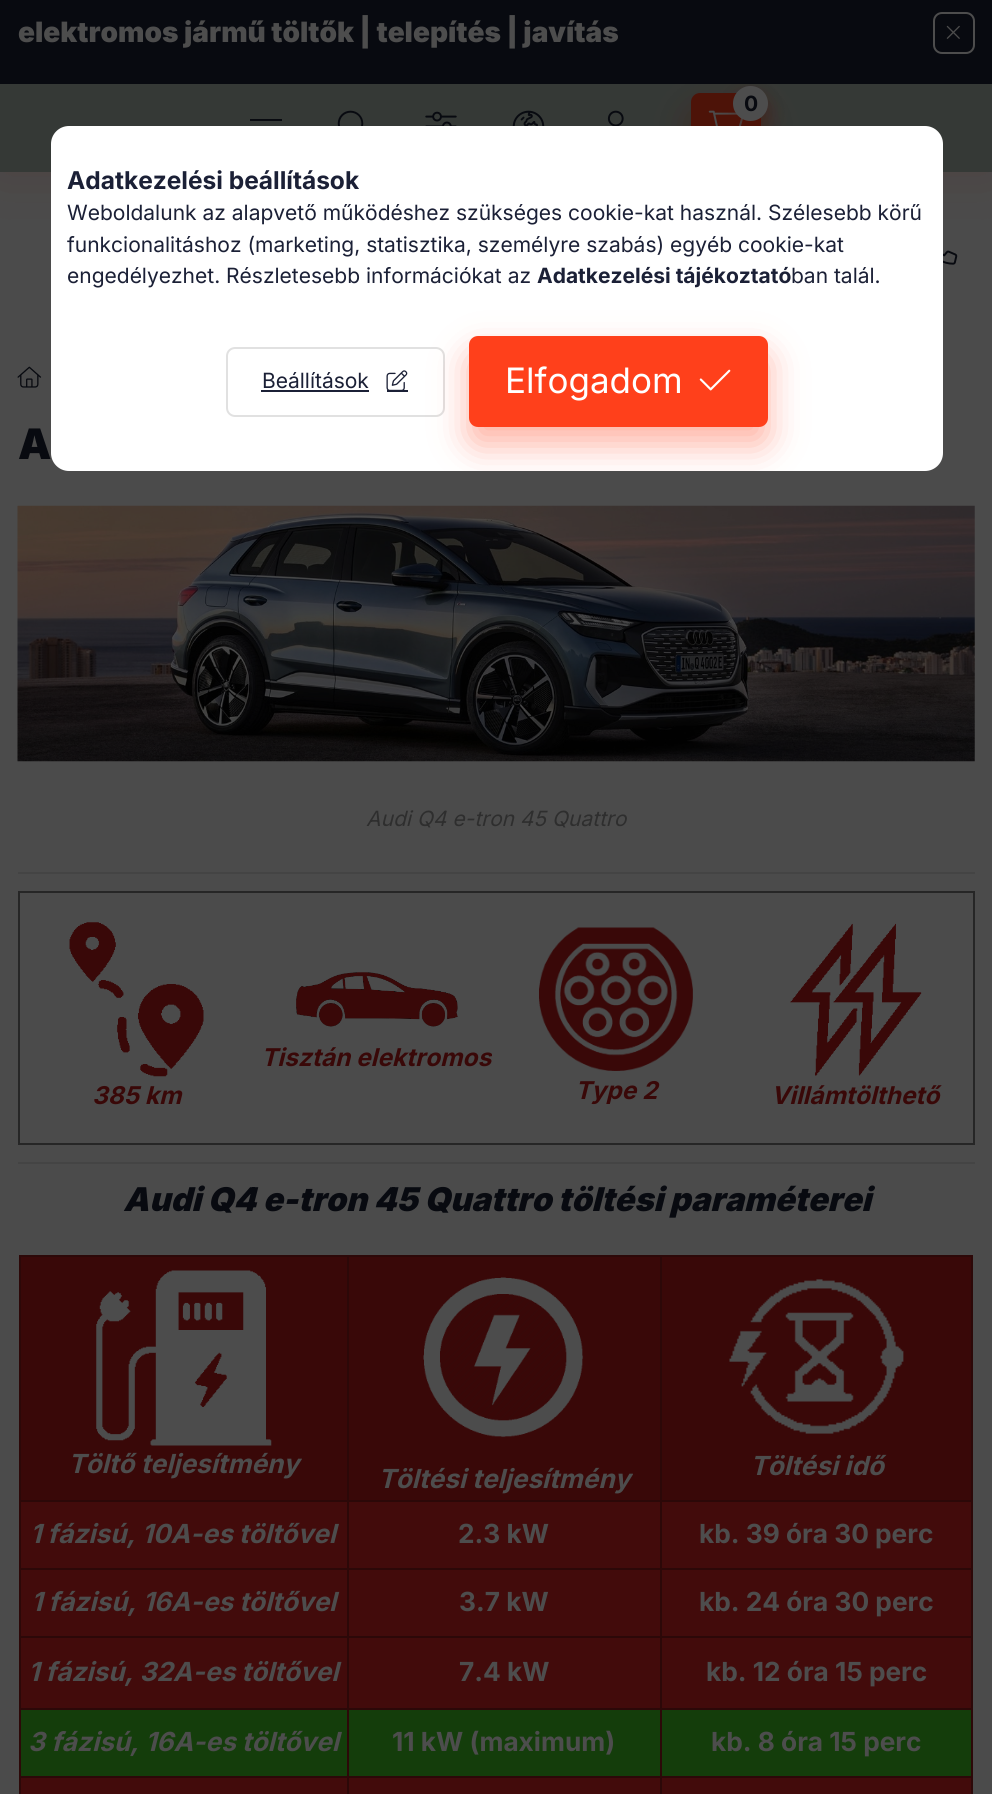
#include <cairo/cairo.h>
#include <math.h>
#include <stddef.h>

typedef struct { double x, y; const char *s; } line_t;
typedef struct { double x, y, w, h; unsigned color; } box_t;
static cairo_t *cr;

static void rgb(unsigned color)
{
	cairo_set_source_rgb(cr, (color >> 16) / 255.0, (color >> 8 & 255) / 255.0, (color & 255) / 255.0);
}

static void rrect(double x, double y, double w, double h, double r)
{
	cairo_new_sub_path(cr);
	cairo_arc(cr, x + w - r, y + h - r, r, 0, M_PI / 2);
	cairo_arc(cr, x + r, y + h - r, r, M_PI / 2, M_PI);
	cairo_arc(cr, x + r, y + r, r, M_PI, 1.5 * M_PI);
	cairo_arc(cr, x + w - r, y + r, r, 1.5 * M_PI, 2 * M_PI);
	cairo_close_path(cr);
}

static void soft_shadow(double x, double y, double w, double h, double r, double blur, double alpha)
{
	cairo_push_group_with_content(cr, CAIRO_CONTENT_ALPHA);
	cairo_set_operator(cr, CAIRO_OPERATOR_SOURCE);
	for (int i = 15; i >= -15 && fmin(w, h) + blur * i / 3 > 0; i -= 2) {
		double e = blur * i / 6;
		cairo_set_source_rgba(cr, 0, 0, 0, alpha * erfc((i - 1) / 8.5) / 2);
		rrect(x - e, y - e, w + 2 * e, h + 2 * e, fmax(0, fmin(r + e + blur * .6, fmin(w, h) / 2 + e)));
		cairo_fill(cr);
	}
	cairo_pattern_t *soft = cairo_pop_group(cr);
	cairo_mask(cr, soft);
	cairo_pattern_destroy(soft);
}

static void image(const char *path, double x, double y, double w, double h)
{
	cairo_surface_t *image = cairo_image_surface_create_from_png(path);
	cairo_save(cr);
	cairo_set_source_surface(cr, image, x, y);
	cairo_rectangle(cr, x, y, w, h);
	cairo_fill(cr);
	cairo_restore(cr);
	cairo_surface_destroy(image);
}

int main(void) {
	cairo_surface_t *surface = cairo_image_surface_create(CAIRO_FORMAT_RGB24, 992, 1794);
	cr = cairo_create(surface);
	cairo_font_options_t *options = cairo_font_options_create();
	cairo_font_options_set_hint_metrics(options, CAIRO_HINT_METRICS_OFF);
	cairo_font_options_set_hint_style(options, CAIRO_HINT_STYLE_NONE);
	cairo_set_font_options(cr, options);
	cairo_set_miter_limit(cr, 4);
	rgb(0x4b4b4b);
	cairo_paint(cr);
	image("img/7.png", 943, 250, 15, 15);
	rgb(0x4d1308);
	soft_shadow(0, 84, 992, 88, 0, 26, 0.2);
	rgb(0x353936);
	cairo_rectangle(cr, 0, 84, 992, 88);
	cairo_fill(cr);
	rgb(0x4d1308);
	soft_shadow(691, 110, 70, 70, 9, 17.5, 0.4);
	rgb(0x4d1308);
	rrect(691, 93, 70, 70, 9);
	cairo_fill(cr);
	image("img/2.png", 708, 110, 35, 16);
	rgb(0x4d1308);
	soft_shadow(733, 95, 35, 35, 17.5, 9, 0.4);
	rgb(0x080a10);
	cairo_rectangle(cr, 0, 0, 992, 84);
	cairo_fill(cr);
	rrect(934, 13, 40, 40, 8);
	rgb(0x4d4d4d);
	cairo_stroke(cr);
	image("img/1.png", 946, 25, 14, 14);
	cairo_arc(cr, 750.5, 103.5, 17.5, 0, 2 * M_PI);
	cairo_fill(cr);
	rgb(0x080a10);
	cairo_rectangle(cr, 250, 119, 32, 2);
	cairo_fill(cr);
	image("img/3.png", 337, 110, 27, 16);
	image("img/4.png", 425, 111, 32, 15);
	image("img/5.png", 512, 110, 33, 16);
	image("img/6.png", 607, 110, 17, 16);
	image("img/8.png", 17, 366, 25, 22);
	image("img/9.png", 17, 505, 958, 257);
	{
		static const box_t items[] = {
			{18, 872, 957, 2, 0x444444},
			{18, 891, 957, 2, 0x262626},
			{973, 891, 2, 254, 0x262626},
			{18, 1143, 957, 2, 0x262626},
			{18, 891, 2, 254, 0x262626},
		};
		for (size_t i = 0; i < sizeof items / sizeof *items; i++) {
			rgb(items[i].color);
			cairo_rectangle(cr, items[i].x, items[i].y, items[i].w, items[i].h);
			cairo_fill(cr);
		}
	}
	image("img/10.png", 296, 972, 162, 55);
	image("img/11.png", 69, 922, 135, 155);
	image("img/12.png", 539, 927, 154, 144);
	image("img/13.png", 790, 923, 132, 153);
	{
		static const box_t items[] = {
			{18, 1162, 957, 2, 0x444444},
			{21, 1257, 326, 243, 0x390808},
			{660, 1255, 313, 2, 0x2c0808},
			{660, 1500, 313, 2, 0x2c0808},
			{660, 1568, 313, 2, 0x2c0808},
			{660, 1636, 313, 2, 0x2c0808},
			{660, 1708, 313, 2, 0x2c0808},
			{660, 1776, 313, 2, 0x2c0808},
			{660, 1776, 2, 18, 0x2c0808},
			{347, 1776, 315, 2, 0x2c0808},
			{660, 1708, 2, 70, 0x2c0808},
			{347, 1708, 315, 2, 0x2c0808},
			{660, 1636, 2, 74, 0x2c0808},
			{347, 1636, 315, 2, 0x2c0808},
			{660, 1568, 2, 70, 0x2c0808},
			{347, 1568, 315, 2, 0x2c0808},
			{660, 1500, 2, 70, 0x2c0808},
			{347, 1500, 315, 2, 0x2c0808},
			{660, 1255, 2, 247, 0x2c0808},
			{347, 1255, 315, 2, 0x2c0808},
			{347, 1776, 2, 18, 0x2c0808},
			{19, 1776, 329, 2, 0x2c0808},
			{347, 1708, 2, 70, 0x2c0808},
			{19, 1708, 329, 2, 0x2c0808},
			{347, 1636, 2, 74, 0x2c0808},
			{19, 1636, 329, 2, 0x2c0808},
			{347, 1568, 2, 70, 0x2c0808},
			{19, 1568, 329, 2, 0x2c0808},
			{347, 1500, 2, 70, 0x2c0808},
			{19, 1500, 329, 2, 0x2c0808},
			{347, 1255, 2, 247, 0x2c0808},
			{19, 1255, 329, 2, 0x2c0808},
			{19, 1776, 2, 18, 0x2c0808},
			{19, 1708, 2, 70, 0x2c0808},
			{19, 1636, 2, 74, 0x2c0808},
			{19, 1568, 2, 70, 0x2c0808},
			{19, 1500, 2, 70, 0x2c0808},
			{19, 1255, 2, 247, 0x2c0808},
		};
		for (size_t i = 0; i < sizeof items / sizeof *items; i++) {
			rgb(items[i].color);
			cairo_rectangle(cr, items[i].x, items[i].y, items[i].w, items[i].h);
			cairo_fill(cr);
		}
	}
	image("img/14.png", 96, 1270, 176, 176);
	rgb(0x390808);
	cairo_rectangle(cr, 349, 1257, 311, 243);
	cairo_fill(cr);
	image("img/15.png", 423, 1277, 161, 161);
	{
		static const box_t items[] = {
			{662, 1257, 309, 243, 0x390808},
			{971, 1776, 2, 18, 0x2c0808},
			{971, 1708, 2, 70, 0x2c0808},
			{971, 1636, 2, 74, 0x2c0808},
			{971, 1568, 2, 70, 0x2c0808},
			{971, 1500, 2, 70, 0x2c0808},
			{971, 1255, 2, 247, 0x2c0808},
		};
		for (size_t i = 0; i < sizeof items / sizeof *items; i++) {
			rgb(items[i].color);
			cairo_rectangle(cr, items[i].x, items[i].y, items[i].w, items[i].h);
			cairo_fill(cr);
		}
	}
	image("img/16.png", 729, 1279, 175, 155);
	{
		static const box_t items[] = {
			{21, 1502, 326, 66, 0x420b0b},
			{349, 1502, 311, 66, 0x420b0b},
			{662, 1502, 309, 66, 0x420b0b},
			{21, 1570, 326, 66, 0x420b0b},
			{349, 1570, 311, 66, 0x420b0b},
			{662, 1570, 309, 66, 0x420b0b},
			{21, 1638, 326, 70, 0x420b0b},
			{349, 1638, 311, 70, 0x420b0b},
			{662, 1638, 309, 70, 0x420b0b},
			{21, 1710, 326, 66, 0x143d0b},
			{349, 1710, 311, 66, 0x143d0b},
			{662, 1710, 309, 66, 0x143d0b},
			{21, 1778, 326, 16, 0x420b0b},
			{349, 1778, 311, 16, 0x420b0b},
			{662, 1778, 309, 16, 0x420b0b},
		};
		for (size_t i = 0; i < sizeof items / sizeof *items; i++) {
			rgb(items[i].color);
			cairo_rectangle(cr, items[i].x, items[i].y, items[i].w, items[i].h);
			cairo_fill(cr);
		}
	}
	rgb(0xffffff);
	rrect(51, 126, 892, 345, 18);
	cairo_fill(cr);
	rrect(227, 348, 217, 68, 8);
	rgb(0xe1e1e1);
	cairo_stroke(cr);
	rgb(0x1b2036);
	cairo_rectangle(cr, 261, 390, 108, 2);
	cairo_fill(cr);
	image("img/17.png", 386, 370, 22, 20);
	cairo_rectangle(cr, 387, 390, 21, 2);
	cairo_fill(cr);
	cairo_save(cr);
	rrect(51, 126, 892, 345, 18);
	cairo_clip(cr);
	rgb(0xff401b);
	soft_shadow(469, 354, 299, 91, 9, 17.5, 0.4);
	cairo_restore(cr);
	rgb(0xff401b);
	rrect(470, 337, 297, 89, 8);
	cairo_fill_preserve(cr);
	cairo_stroke(cr);
	image("img/18.png", 699, 369, 32, 22);
	cairo_select_font_face(cr, "Inter Black", CAIRO_FONT_SLANT_NORMAL, CAIRO_FONT_WEIGHT_NORMAL);
	cairo_set_font_size(cr, 28);
	rgb(0x4d4d4d);
	cairo_move_to(cr, 18, 42);
	cairo_show_text(cr, "elektromos jármű töltők | telepítés | javítás");
	cairo_select_font_face(cr, "Inter", CAIRO_FONT_SLANT_NORMAL, CAIRO_FONT_WEIGHT_BOLD);
	cairo_set_font_size(cr, 21);
	rgb(0x080a10);
	cairo_move_to(cr, 744, 111);
	cairo_show_text(cr, "0");
	cairo_select_font_face(cr, "Inter Black", CAIRO_FONT_SLANT_NORMAL, CAIRO_FONT_WEIGHT_NORMAL);
	cairo_set_font_size(cr, 42);
	cairo_move_to(cr, 18, 459);
	cairo_show_text(cr, "A");
	cairo_select_font_face(cr, "Inter", CAIRO_FONT_SLANT_ITALIC, CAIRO_FONT_WEIGHT_NORMAL);
	cairo_set_font_size(cr, 21);
	rgb(0x2e2e2e);
	cairo_move_to(cr, 366, 826);
	cairo_show_text(cr, "Audi Q4 e-tron 45 Quattro");
	cairo_select_font_face(cr, "Inter", CAIRO_FONT_SLANT_ITALIC, CAIRO_FONT_WEIGHT_BOLD);
	cairo_set_font_size(cr, 24.5);
	rgb(0x390808);
	{
		static const line_t items[] = {
			{261, 1066, "Tisztán elektromos"},
			{92, 1104, "385 km"},
			{575, 1099, "Type 2"},
			{771, 1104, "Villámtölthető"},
		};
		for (size_t i = 0; i < sizeof items / sizeof *items; i++) {
			cairo_move_to(cr, items[i].x, items[i].y);
			cairo_show_text(cr, items[i].s);
		}
	}
	cairo_select_font_face(cr, "Inter Black", CAIRO_FONT_SLANT_ITALIC, CAIRO_FONT_WEIGHT_NORMAL);
	cairo_set_font_size(cr, 32.7);
	rgb(0x080a10);
	cairo_move_to(cr, 123, 1211);
	cairo_show_text(cr, "Audi Q4 e-tron 45 Quattro töltési paraméterei");
	cairo_select_font_face(cr, "Inter", CAIRO_FONT_SLANT_ITALIC, CAIRO_FONT_WEIGHT_BOLD);
	cairo_set_font_size(cr, 26.25);
	rgb(0x4d4d4d);
	{
		static const line_t items[] = {
			{68, 1473, "Töltő teljesítmény"},
			{378, 1488, "Töltési teljesítmény"},
			{750, 1475, "Töltési idő"},
			{30, 1543, "1 fázisú, 10A-es töltővel"},
		};
		for (size_t i = 0; i < sizeof items / sizeof *items; i++) {
			cairo_move_to(cr, items[i].x, items[i].y);
			cairo_show_text(cr, items[i].s);
		}
	}
	cairo_select_font_face(cr, "Inter", CAIRO_FONT_SLANT_NORMAL, CAIRO_FONT_WEIGHT_BOLD);
	cairo_move_to(cr, 458, 1543);
	cairo_show_text(cr, "2.3 kW");
	cairo_move_to(cr, 699, 1543);
	cairo_show_text(cr, "kb. 39 óra 30 perc");
	cairo_select_font_face(cr, "Inter", CAIRO_FONT_SLANT_ITALIC, CAIRO_FONT_WEIGHT_BOLD);
	cairo_move_to(cr, 31, 1611);
	cairo_show_text(cr, "1 fázisú, 16A-es töltővel");
	cairo_select_font_face(cr, "Inter", CAIRO_FONT_SLANT_NORMAL, CAIRO_FONT_WEIGHT_BOLD);
	cairo_move_to(cr, 459, 1611);
	cairo_show_text(cr, "3.7 kW");
	cairo_move_to(cr, 699, 1611);
	cairo_show_text(cr, "kb. 24 óra 30 perc");
	cairo_select_font_face(cr, "Inter", CAIRO_FONT_SLANT_ITALIC, CAIRO_FONT_WEIGHT_BOLD);
	cairo_move_to(cr, 28, 1681);
	cairo_show_text(cr, "1 fázisú, 32A-es töltővel");
	cairo_select_font_face(cr, "Inter", CAIRO_FONT_SLANT_NORMAL, CAIRO_FONT_WEIGHT_BOLD);
	cairo_move_to(cr, 459, 1681);
	cairo_show_text(cr, "7.4 kW");
	cairo_move_to(cr, 706, 1681);
	cairo_show_text(cr, "kb. 12 óra 15 perc");
	cairo_select_font_face(cr, "Inter", CAIRO_FONT_SLANT_ITALIC, CAIRO_FONT_WEIGHT_BOLD);
	cairo_move_to(cr, 28, 1751);
	cairo_show_text(cr, "3 fázisú, 16A-es töltővel");
	cairo_select_font_face(cr, "Inter", CAIRO_FONT_SLANT_NORMAL, CAIRO_FONT_WEIGHT_BOLD);
	cairo_move_to(cr, 392, 1751);
	cairo_show_text(cr, "11 kW (maximum)");
	cairo_move_to(cr, 711, 1751);
	cairo_show_text(cr, "kb. 8 óra 15 perc");
	cairo_set_font_size(cr, 24.5);
	rgb(0x1b2036);
	cairo_move_to(cr, 67, 189);
	cairo_show_text(cr, "Adatkezelési beállítások");
	cairo_select_font_face(cr, "Inter", CAIRO_FONT_SLANT_NORMAL, CAIRO_FONT_WEIGHT_NORMAL);
	cairo_set_font_size(cr, 21);
	{
		static const line_t items[] = {
			{67, 220, "Weboldalunk az alapvető működéshez szükséges cookie-kat használ. Szélesebb körű"},
			{67, 252, "funkcionalitáshoz (marketing, statisztika, személyre szabás) egyéb cookie-kat"},
			{67, 283, "engedélyezhet. Részletesebb információkat az"},
		};
		for (size_t i = 0; i < sizeof items / sizeof *items; i++) {
			cairo_move_to(cr, items[i].x, items[i].y);
			cairo_show_text(cr, items[i].s);
		}
	}
	cairo_select_font_face(cr, "Inter", CAIRO_FONT_SLANT_NORMAL, CAIRO_FONT_WEIGHT_BOLD);
	cairo_move_to(cr, 537, 283);
	cairo_show_text(cr, "Adatkezelési tájékoztató");
	cairo_select_font_face(cr, "Inter", CAIRO_FONT_SLANT_NORMAL, CAIRO_FONT_WEIGHT_NORMAL);
	cairo_move_to(cr, 791, 283);
	cairo_show_text(cr, "ban talál.");
	cairo_move_to(cr, 262, 388);
	cairo_show_text(cr, "Beállítások");
	cairo_set_font_size(cr, 35);
	rgb(0xffffff);
	cairo_move_to(cr, 505, 393);
	cairo_show_text(cr, "Elfogadom");
	cairo_surface_write_to_png(surface, "page.png");
	cairo_font_options_destroy(options);
	cairo_destroy(cr);
	cairo_surface_destroy(surface);
	return 0;
}
